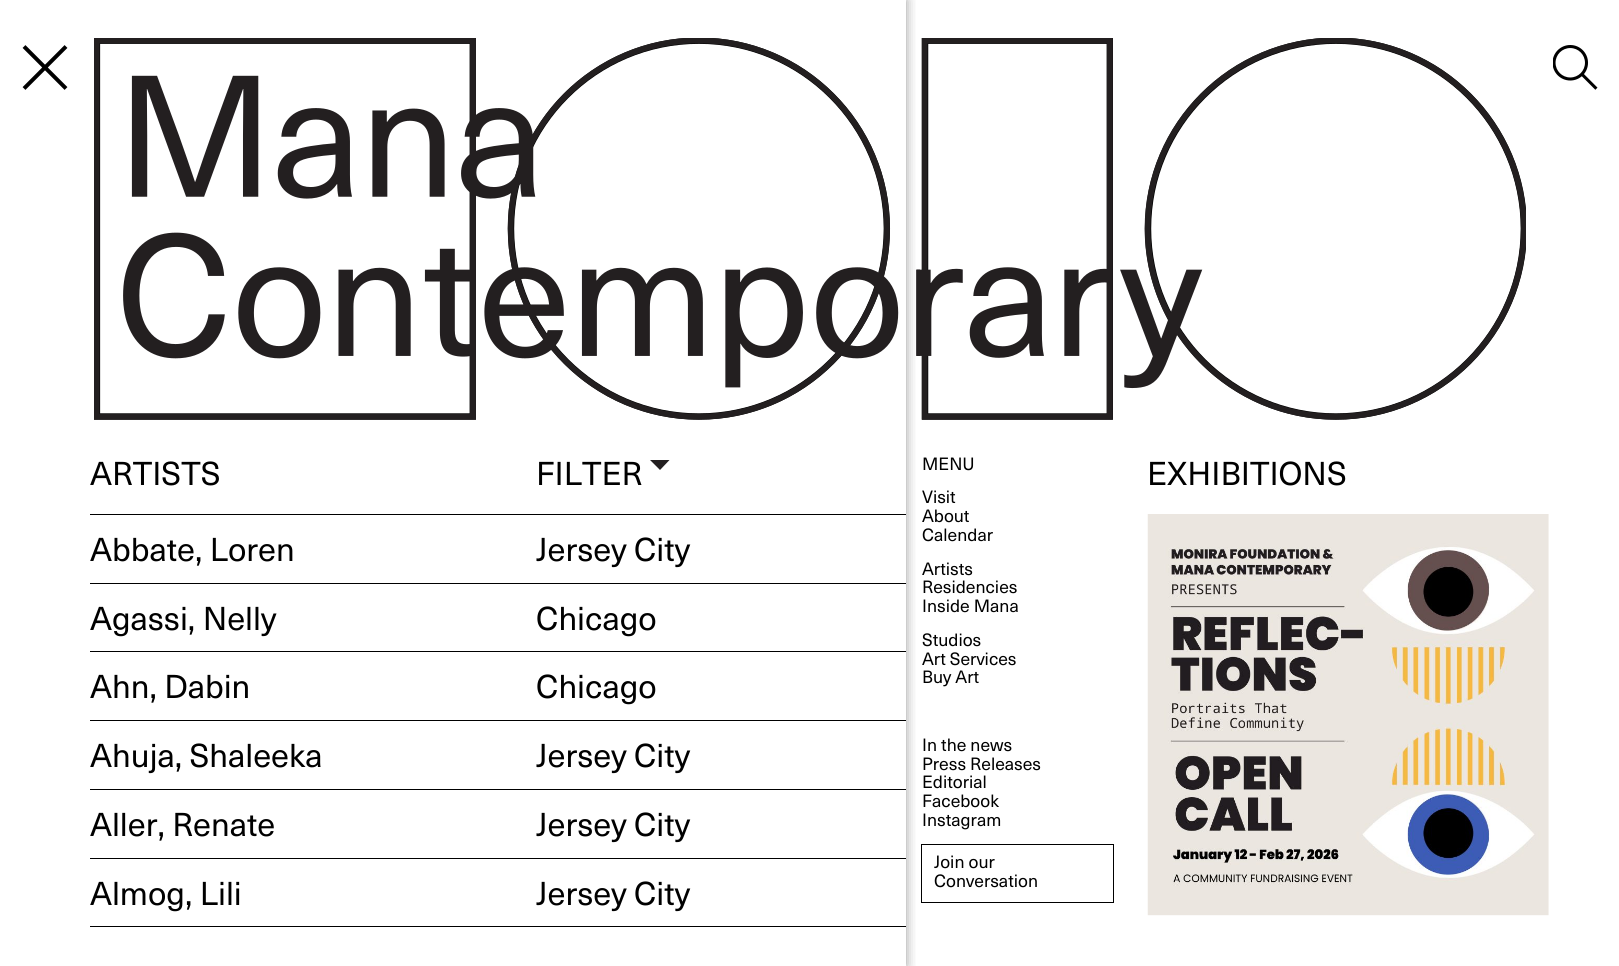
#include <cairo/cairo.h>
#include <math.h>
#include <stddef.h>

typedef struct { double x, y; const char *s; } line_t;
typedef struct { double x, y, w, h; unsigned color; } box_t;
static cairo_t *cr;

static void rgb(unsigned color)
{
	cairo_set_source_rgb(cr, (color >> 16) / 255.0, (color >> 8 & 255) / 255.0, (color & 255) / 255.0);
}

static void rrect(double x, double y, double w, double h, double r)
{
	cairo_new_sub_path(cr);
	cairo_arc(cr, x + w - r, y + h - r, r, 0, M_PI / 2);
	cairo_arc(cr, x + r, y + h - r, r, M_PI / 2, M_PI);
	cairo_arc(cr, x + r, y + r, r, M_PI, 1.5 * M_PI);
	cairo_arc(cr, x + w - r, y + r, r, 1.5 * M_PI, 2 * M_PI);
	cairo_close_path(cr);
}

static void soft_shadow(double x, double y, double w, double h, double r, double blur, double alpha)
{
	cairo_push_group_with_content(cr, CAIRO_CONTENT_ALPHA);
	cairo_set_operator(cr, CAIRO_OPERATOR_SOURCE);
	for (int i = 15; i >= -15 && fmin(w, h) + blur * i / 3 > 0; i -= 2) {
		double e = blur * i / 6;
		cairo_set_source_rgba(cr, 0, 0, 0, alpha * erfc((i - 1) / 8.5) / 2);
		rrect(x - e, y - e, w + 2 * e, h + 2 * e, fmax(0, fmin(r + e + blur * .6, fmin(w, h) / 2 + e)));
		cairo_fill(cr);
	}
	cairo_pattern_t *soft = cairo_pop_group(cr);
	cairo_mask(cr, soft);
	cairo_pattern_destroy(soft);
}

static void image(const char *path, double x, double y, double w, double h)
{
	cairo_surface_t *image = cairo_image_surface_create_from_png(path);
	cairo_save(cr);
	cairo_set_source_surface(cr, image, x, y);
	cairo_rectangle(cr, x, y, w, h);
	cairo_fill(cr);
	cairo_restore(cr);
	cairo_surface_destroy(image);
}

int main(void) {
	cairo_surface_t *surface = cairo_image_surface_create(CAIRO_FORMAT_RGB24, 1619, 966);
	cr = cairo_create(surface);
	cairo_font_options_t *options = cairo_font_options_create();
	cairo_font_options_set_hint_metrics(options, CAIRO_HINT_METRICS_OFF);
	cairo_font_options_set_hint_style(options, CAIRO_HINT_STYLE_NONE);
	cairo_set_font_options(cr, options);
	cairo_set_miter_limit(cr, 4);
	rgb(0xffffff);
	cairo_paint(cr);
	image("img/1.png", 916, 38, 610, 382);
	image("img/2.png", 1553, 45, 45, 45);
	image("img/3.png", 94, 38, 826, 382);
	cairo_rectangle(cr, 921.5, 844.5, 192, 58);
	rgb(0x000000);
	cairo_set_line_width(cr, 1);
	cairo_stroke(cr);
	cairo_save(cr);
	cairo_rectangle(cr, 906, 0, 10, 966);
	cairo_clip(cr);
	rgb(0x000000);
	soft_shadow(0, 0, 906, 966, 0, 6, 0.4);
	cairo_restore(cr);
	cairo_new_path(cr);
	cairo_move_to(cr, 24, 46.5);
	cairo_line_to(cr, 66, 88.5);
	cairo_move_to(cr, 66, 46.5);
	cairo_line_to(cr, 24, 88.5);
	cairo_set_line_width(cr, 4);
	cairo_stroke(cr);
	rgb(0x231f20);
	cairo_set_fill_rule(cr, CAIRO_FILL_RULE_EVEN_ODD);
	cairo_new_path(cr);
	cairo_move_to(cr, 650, 460);
	cairo_line_to(cr, 660, 470);
	cairo_line_to(cr, 669.5, 460);
	cairo_close_path(cr);
	cairo_fill(cr);
	{
		static const box_t items[] = {
			{90, 514, 816, 1, 0x000000},
			{90, 583, 816, 1, 0x000000},
			{90, 651, 816, 1, 0x000000},
			{90, 720, 816, 1, 0x000000},
			{90, 789, 816, 1, 0x000000},
			{90, 858, 816, 1, 0x000000},
			{90, 926, 816, 1, 0x000000},
		};
		for (size_t i = 0; i < sizeof items / sizeof *items; i++) {
			rgb(items[i].color);
			cairo_rectangle(cr, items[i].x, items[i].y, items[i].w, items[i].h);
			cairo_fill(cr);
		}
	}
	image("img/4.png", 1147, 514, 402, 402);
	cairo_select_font_face(cr, "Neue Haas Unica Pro", CAIRO_FONT_SLANT_NORMAL, CAIRO_FONT_WEIGHT_NORMAL);
	cairo_set_font_size(cr, 32.5);
	{
		static const line_t items[] = {
			{90, 485, "ARTISTS"},
			{536, 485, "FILTER"},
			{90, 561, "Abbate, Loren"},
			{536, 561, "Jersey City"},
			{90, 630, "Agassi, Nelly"},
			{536, 630, "Chicago"},
			{90, 698, "Ahn, Dabin"},
			{536, 698, "Chicago"},
			{90, 767, "Ahuja, Shaleeka"},
			{536, 767, "Jersey City"},
			{90, 836, "Aller, Renate"},
			{536, 836, "Jersey City"},
			{90, 905, "Almog, Lili"},
			{536, 905, "Jersey City"},
		};
		for (size_t i = 0; i < sizeof items / sizeof *items; i++) {
			cairo_move_to(cr, items[i].x, items[i].y);
			cairo_show_text(cr, items[i].s);
		}
	}
	cairo_set_font_size(cr, 17.5);
	{
		static const line_t items[] = {
			{922, 470, "MENU"},
			{922, 503, "Visit"},
			{922, 522, "About"},
			{922, 541, "Calendar"},
			{922, 575, "Artists"},
			{922, 593, "Residencies"},
			{922, 612, "Inside Mana"},
			{922, 646, "Studios"},
			{922, 665, "Art Services"},
			{922, 683, "Buy Art"},
			{922, 751, "In the news"},
			{922, 770, "Press Releases"},
			{922, 788, "Editorial"},
			{922, 807, "Facebook"},
			{922, 826, "Instagram"},
			{934, 868, "Join our"},
			{934, 887, "Conversation"},
		};
		for (size_t i = 0; i < sizeof items / sizeof *items; i++) {
			cairo_move_to(cr, items[i].x, items[i].y);
			cairo_show_text(cr, items[i].s);
		}
	}
	cairo_set_font_size(cr, 32.5);
	cairo_move_to(cr, 1147, 485);
	cairo_show_text(cr, "EXHIBITIONS");
	cairo_surface_write_to_png(surface, "page.png");
	cairo_font_options_destroy(options);
	cairo_destroy(cr);
	cairo_surface_destroy(surface);
	return 0;
}
